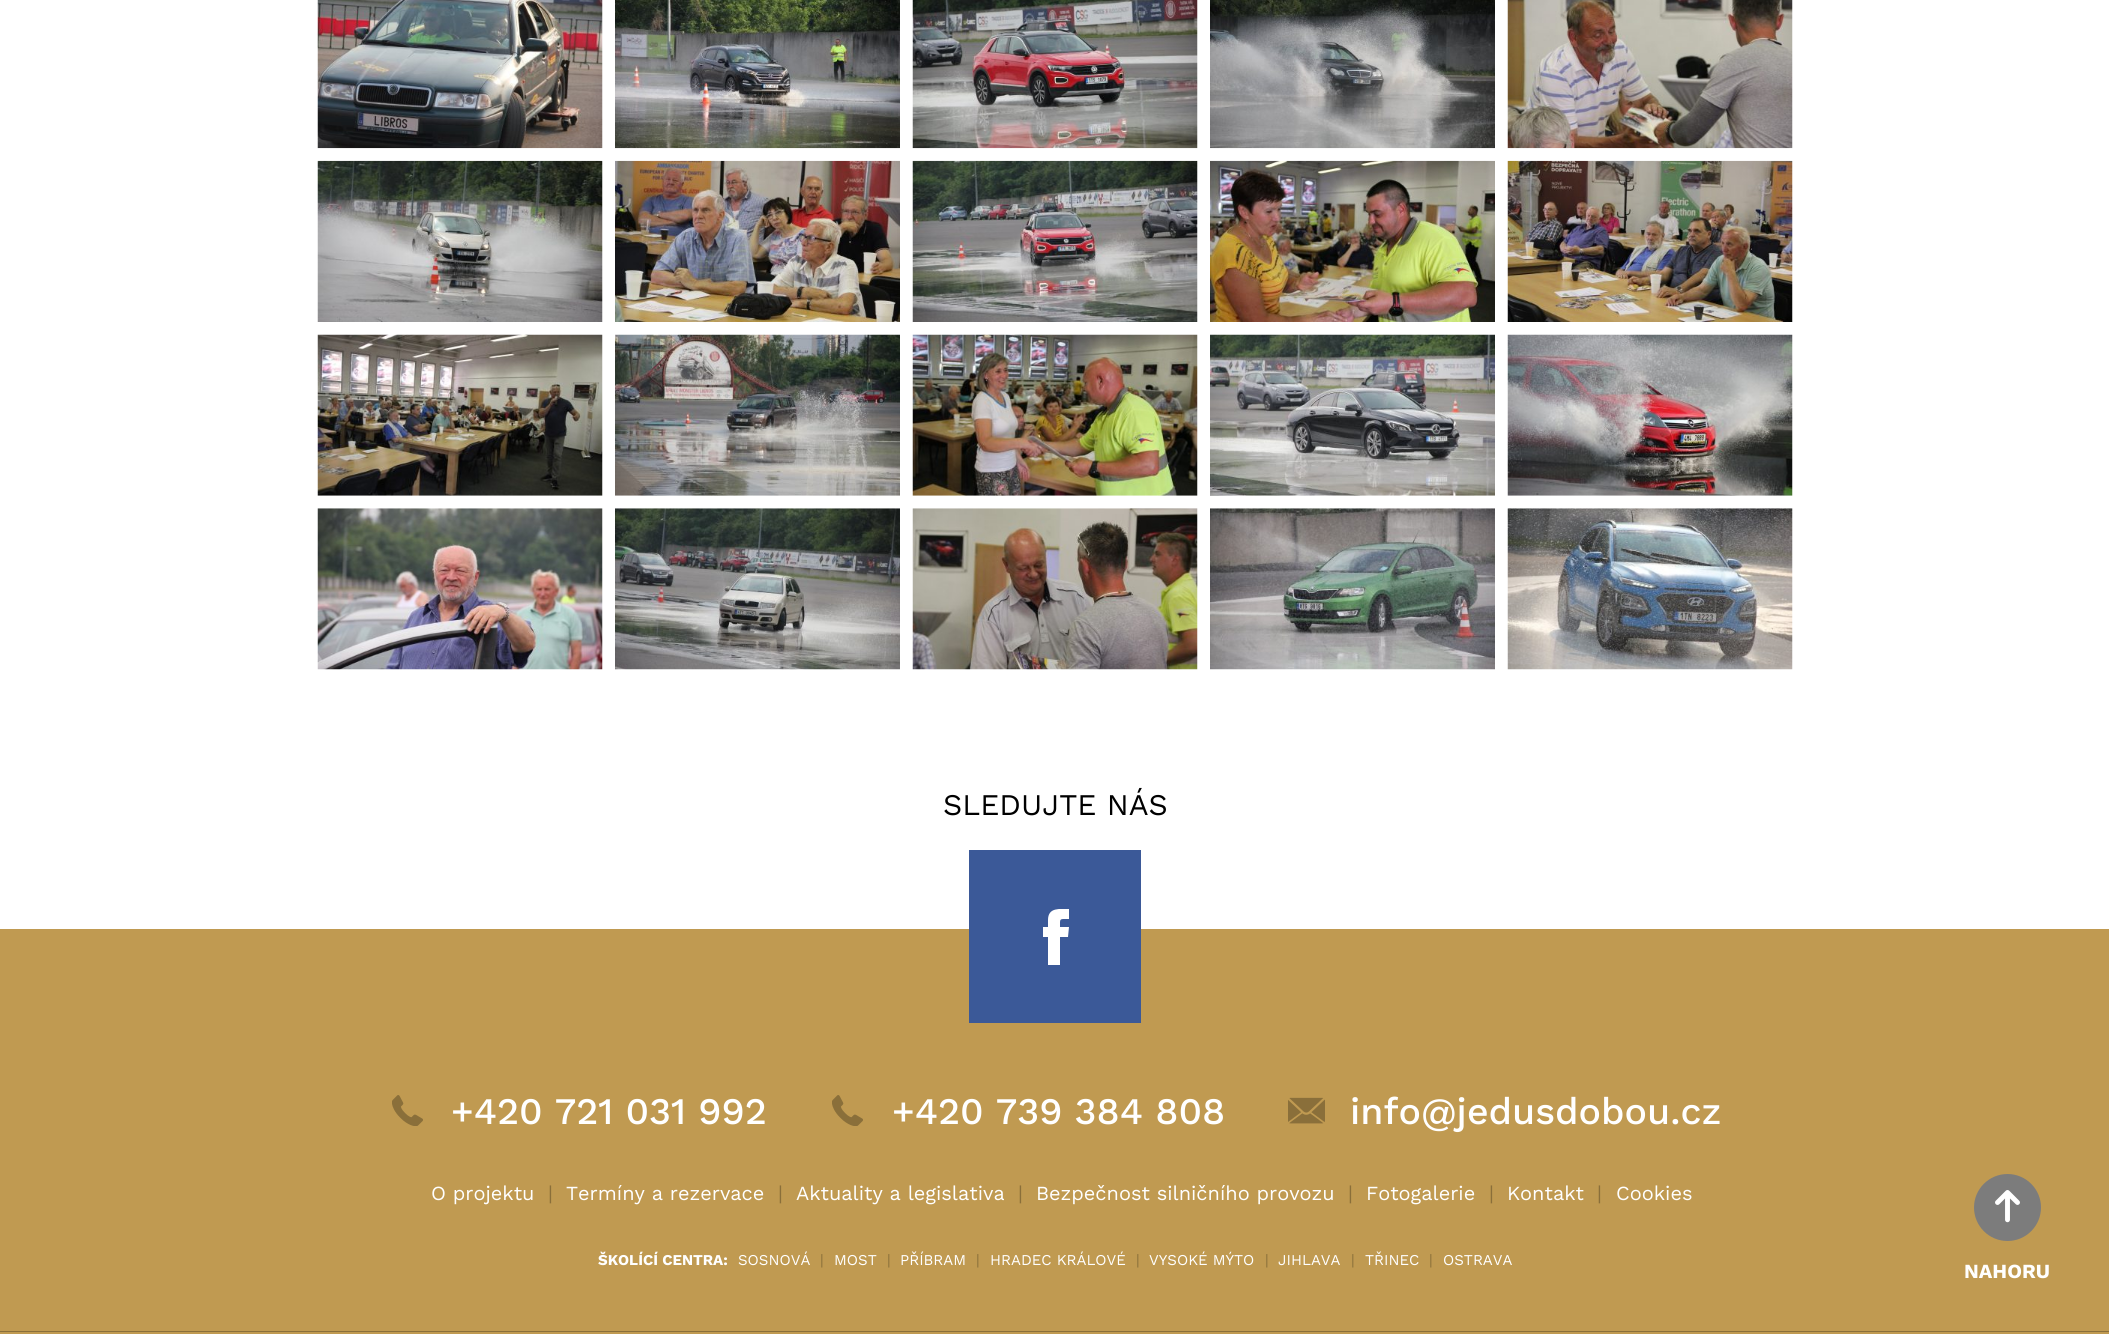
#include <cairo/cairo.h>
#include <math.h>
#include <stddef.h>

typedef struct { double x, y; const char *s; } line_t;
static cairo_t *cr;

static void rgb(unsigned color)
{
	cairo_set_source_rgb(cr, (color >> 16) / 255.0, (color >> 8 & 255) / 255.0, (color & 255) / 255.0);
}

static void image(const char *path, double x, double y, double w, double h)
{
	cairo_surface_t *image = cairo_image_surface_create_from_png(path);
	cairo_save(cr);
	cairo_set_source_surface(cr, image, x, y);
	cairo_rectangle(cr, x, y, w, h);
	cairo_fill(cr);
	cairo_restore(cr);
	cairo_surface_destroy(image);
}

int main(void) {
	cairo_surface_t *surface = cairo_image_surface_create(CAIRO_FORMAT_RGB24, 2109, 1334);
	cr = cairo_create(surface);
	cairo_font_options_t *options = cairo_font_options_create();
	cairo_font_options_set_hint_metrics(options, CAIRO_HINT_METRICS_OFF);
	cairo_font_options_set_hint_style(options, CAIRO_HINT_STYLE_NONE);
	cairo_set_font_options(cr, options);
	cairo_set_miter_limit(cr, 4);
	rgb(0xffffff);
	cairo_paint(cr);
	image("img/1.png", 317, 0, 286, 149);
	image("img/2.png", 615, 0, 285, 149);
	image("img/3.png", 912, 0, 286, 149);
	image("img/4.png", 1210, 0, 285, 149);
	image("img/5.png", 1507, 0, 286, 149);
	image("img/6.png", 317, 160, 286, 162);
	image("img/7.png", 615, 160, 285, 162);
	image("img/8.png", 912, 160, 286, 162);
	image("img/9.png", 1210, 160, 285, 162);
	image("img/10.png", 1507, 160, 286, 162);
	image("img/11.png", 317, 334, 286, 162);
	image("img/12.png", 615, 334, 285, 162);
	image("img/13.png", 912, 334, 286, 162);
	image("img/14.png", 1210, 334, 285, 162);
	image("img/15.png", 1507, 334, 286, 162);
	image("img/16.png", 317, 508, 286, 162);
	image("img/17.png", 615, 508, 285, 162);
	image("img/18.png", 912, 508, 286, 162);
	image("img/19.png", 1210, 508, 285, 162);
	image("img/20.png", 1507, 508, 286, 162);
	rgb(0xc09a51);
	cairo_rectangle(cr, 0, 929, 2109, 405);
	cairo_fill(cr);
	rgb(0x3b5998);
	cairo_rectangle(cr, 969, 850, 172, 173);
	cairo_fill(cr);
	cairo_save(cr);
	cairo_rectangle(cr, 1028, 909, 56, 56);
	cairo_clip(cr);
	rgb(0xffffff);
	cairo_new_path(cr);
	cairo_move_to(cr, 1048, 920);
	cairo_line_to(cr, 1048, 927);
	cairo_line_to(cr, 1043, 927);
	cairo_line_to(cr, 1043, 937);
	cairo_line_to(cr, 1048, 937);
	cairo_line_to(cr, 1048, 965);
	cairo_line_to(cr, 1060, 965);
	cairo_line_to(cr, 1060, 937);
	cairo_line_to(cr, 1068, 937);
	cairo_line_to(cr, 1069, 927);
	cairo_line_to(cr, 1060, 927);
	cairo_curve_to(cr, 1060, 918, 1059, 919, 1069, 919);
	cairo_line_to(cr, 1069, 909);
	cairo_curve_to(cr, 1060, 909, 1048, 907, 1048, 920);
	cairo_close_path(cr);
	cairo_fill(cr);
	cairo_restore(cr);
	image("img/21.png", 392, 1095, 31, 31);
	image("img/21.png", 832, 1095, 31, 31);
	image("img/22.png", 1288, 1097, 37, 27);
	rgb(0x7c7c7c);
	cairo_arc(cr, 2007.5, 1207.5, 33.5, 0, 2 * M_PI);
	cairo_fill(cr);
	image("img/23.png", 1995, 1190, 25, 33);
	rgb(0x8a6f3a);
	cairo_rectangle(cr, 0, 1331, 2109, 1);
	cairo_fill(cr);
	cairo_select_font_face(cr, "Work Sans", CAIRO_FONT_SLANT_NORMAL, CAIRO_FONT_WEIGHT_NORMAL);
	cairo_set_font_size(cr, 30);
	rgb(0x000000);
	cairo_move_to(cr, 943, 815);
	cairo_show_text(cr, "SLEDUJTE NÁS");
	cairo_select_font_face(cr, "Work Sans Medium", CAIRO_FONT_SLANT_NORMAL, CAIRO_FONT_WEIGHT_NORMAL);
	cairo_set_font_size(cr, 37.5);
	rgb(0xffffff);
	{
		static const line_t items[] = {
			{451, 1124, "+420 721 031 992"},
			{892, 1124, "+420 739 384 808"},
			{1350, 1124, "info@jedusdobou.cz"},
		};
		for (size_t i = 0; i < sizeof items / sizeof *items; i++) {
			cairo_move_to(cr, items[i].x, items[i].y);
			cairo_show_text(cr, items[i].s);
		}
	}
	cairo_select_font_face(cr, "Work Sans", CAIRO_FONT_SLANT_NORMAL, CAIRO_FONT_WEIGHT_NORMAL);
	cairo_set_font_size(cr, 20);
	cairo_move_to(cr, 431, 1200);
	cairo_show_text(cr, "O projektu");
	rgb(0x8a6f3a);
	cairo_move_to(cr, 548, 1200);
	cairo_show_text(cr, "|");
	rgb(0xffffff);
	cairo_move_to(cr, 566, 1200);
	cairo_show_text(cr, "Termíny a rezervace");
	rgb(0x8a6f3a);
	cairo_move_to(cr, 778, 1200);
	cairo_show_text(cr, "|");
	rgb(0xffffff);
	cairo_move_to(cr, 796, 1200);
	cairo_show_text(cr, "Aktuality a legislativa");
	rgb(0x8a6f3a);
	cairo_move_to(cr, 1018, 1200);
	cairo_show_text(cr, "|");
	rgb(0xffffff);
	cairo_move_to(cr, 1036, 1200);
	cairo_show_text(cr, "Bezpečnost silničního provozu");
	rgb(0x8a6f3a);
	cairo_move_to(cr, 1348, 1200);
	cairo_show_text(cr, "|");
	rgb(0xffffff);
	cairo_move_to(cr, 1366, 1200);
	cairo_show_text(cr, "Fotogalerie");
	rgb(0x8a6f3a);
	cairo_move_to(cr, 1489, 1200);
	cairo_show_text(cr, "|");
	rgb(0xffffff);
	cairo_move_to(cr, 1507, 1200);
	cairo_show_text(cr, "Kontakt");
	rgb(0x8a6f3a);
	cairo_move_to(cr, 1597, 1200);
	cairo_show_text(cr, "|");
	rgb(0xffffff);
	cairo_move_to(cr, 1616, 1200);
	cairo_show_text(cr, "Cookies");
	cairo_select_font_face(cr, "Work Sans", CAIRO_FONT_SLANT_NORMAL, CAIRO_FONT_WEIGHT_BOLD);
	cairo_set_font_size(cr, 15);
	cairo_move_to(cr, 598, 1265);
	cairo_show_text(cr, "ŠKOLÍCÍ CENTRA:");
	cairo_select_font_face(cr, "Work Sans", CAIRO_FONT_SLANT_NORMAL, CAIRO_FONT_WEIGHT_NORMAL);
	cairo_move_to(cr, 738, 1265);
	cairo_show_text(cr, "SOSNOVÁ");
	rgb(0x8a6f3a);
	cairo_move_to(cr, 820, 1265);
	cairo_show_text(cr, "|");
	rgb(0xffffff);
	cairo_move_to(cr, 834, 1265);
	cairo_show_text(cr, "MOST");
	rgb(0x8a6f3a);
	cairo_move_to(cr, 887, 1265);
	cairo_show_text(cr, "|");
	rgb(0xffffff);
	cairo_move_to(cr, 900, 1265);
	cairo_show_text(cr, "PŘÍBRAM");
	rgb(0x8a6f3a);
	cairo_move_to(cr, 976, 1265);
	cairo_show_text(cr, "|");
	rgb(0xffffff);
	cairo_move_to(cr, 990, 1265);
	cairo_show_text(cr, "HRADEC KRÁLOVÉ");
	rgb(0x8a6f3a);
	cairo_move_to(cr, 1136, 1265);
	cairo_show_text(cr, "|");
	rgb(0xffffff);
	cairo_move_to(cr, 1149, 1265);
	cairo_show_text(cr, "VYSOKÉ MÝTO");
	rgb(0x8a6f3a);
	cairo_move_to(cr, 1265, 1265);
	cairo_show_text(cr, "|");
	rgb(0xffffff);
	cairo_move_to(cr, 1278, 1265);
	cairo_show_text(cr, "JIHLAVA");
	rgb(0x8a6f3a);
	cairo_move_to(cr, 1351, 1265);
	cairo_show_text(cr, "|");
	rgb(0xffffff);
	cairo_move_to(cr, 1365, 1265);
	cairo_show_text(cr, "TŘINEC");
	rgb(0x8a6f3a);
	cairo_move_to(cr, 1429, 1265);
	cairo_show_text(cr, "|");
	rgb(0xffffff);
	cairo_move_to(cr, 1443, 1265);
	cairo_show_text(cr, "OSTRAVA");
	cairo_select_font_face(cr, "Work Sans", CAIRO_FONT_SLANT_NORMAL, CAIRO_FONT_WEIGHT_BOLD);
	cairo_set_font_size(cr, 20);
	cairo_move_to(cr, 1964, 1278);
	cairo_show_text(cr, "NAHORU");
	cairo_surface_write_to_png(surface, "page.png");
	cairo_font_options_destroy(options);
	cairo_destroy(cr);
	cairo_surface_destroy(surface);
	return 0;
}
